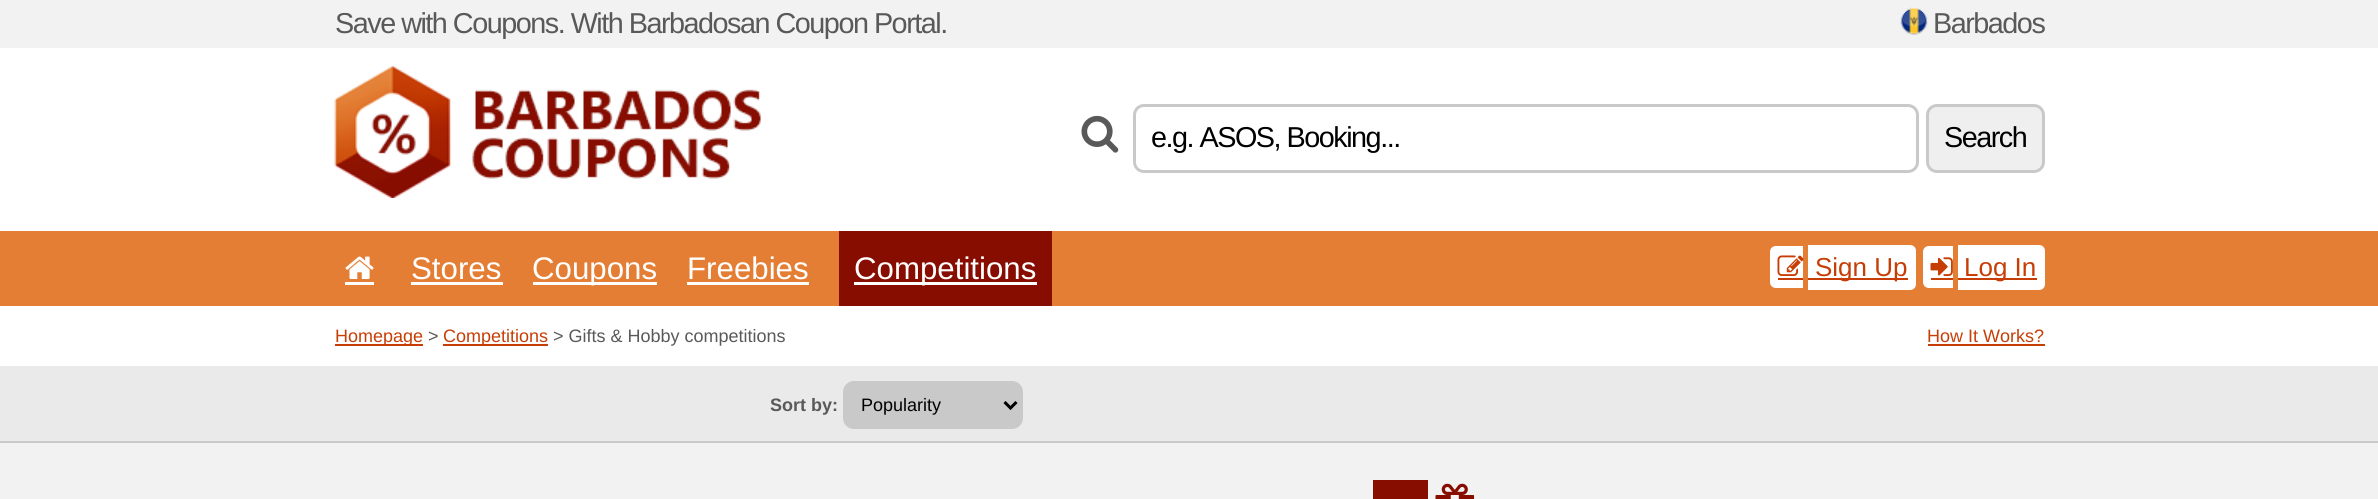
#include <cairo/cairo.h>
#include <math.h>
#include <stddef.h>

typedef struct { double x, y; const char *s; } line_t;
typedef struct { double x, y, w, h; unsigned color; } box_t;
static cairo_t *cr;

static void rgb(unsigned color)
{
	cairo_set_source_rgb(cr, (color >> 16) / 255.0, (color >> 8 & 255) / 255.0, (color & 255) / 255.0);
}

static void tracked(double x, double y, const char *s, double letter, double word)
{
	cairo_move_to(cr, x, y);
	while (*s) {
		char ch[5] = {0};
		int n = 0;
		do ch[n++] = *s++; while ((*s & 0xC0) == 0x80);
		cairo_show_text(cr, ch);
		cairo_rel_move_to(cr, letter + word * (*ch == ' '), 0);
	}
}

static void rrect(double x, double y, double w, double h, double r)
{
	cairo_new_sub_path(cr);
	cairo_arc(cr, x + w - r, y + h - r, r, 0, M_PI / 2);
	cairo_arc(cr, x + r, y + h - r, r, M_PI / 2, M_PI);
	cairo_arc(cr, x + r, y + r, r, M_PI, 1.5 * M_PI);
	cairo_arc(cr, x + w - r, y + r, r, 1.5 * M_PI, 2 * M_PI);
	cairo_close_path(cr);
}

static void image(const char *path, double x, double y, double w, double h)
{
	cairo_surface_t *image = cairo_image_surface_create_from_png(path);
	cairo_save(cr);
	cairo_set_source_surface(cr, image, x, y);
	cairo_rectangle(cr, x, y, w, h);
	cairo_fill(cr);
	cairo_restore(cr);
	cairo_surface_destroy(image);
}

int main(void) {
	cairo_surface_t *surface = cairo_image_surface_create(CAIRO_FORMAT_RGB24, 2378, 499);
	cr = cairo_create(surface);
	cairo_font_options_t *options = cairo_font_options_create();
	cairo_font_options_set_hint_metrics(options, CAIRO_HINT_METRICS_OFF);
	cairo_font_options_set_hint_style(options, CAIRO_HINT_STYLE_NONE);
	cairo_set_font_options(cr, options);
	cairo_set_miter_limit(cr, 4);
	rgb(0xf2f2f2);
	cairo_paint(cr);
	image("img/1.png", 1900, 7, 28, 28);
	rgb(0xffffff);
	cairo_rectangle(cr, 0, 48, 2378, 183);
	cairo_fill(cr);
	image("img/2.png", 334, 66, 427, 132);
	image("img/3.png", 1081, 115, 38, 38);
	rrect(1134.5, 105.5, 783, 66, 9.5);
	rgb(0xc9c9c9);
	cairo_set_line_width(cr, 3);
	cairo_stroke(cr);
	rgb(0xefefef);
	rrect(1927.5, 105.5, 116, 66, 9.5);
	cairo_fill_preserve(cr);
	rgb(0xc9c9c9);
	cairo_stroke(cr);
	rgb(0xe47e34);
	cairo_rectangle(cr, 0, 231, 2378, 75);
	cairo_fill(cr);
	image("img/4.png", 345, 256, 29, 23);
	{
		static const box_t items[] = {
			{345, 282, 29, 3, 0xffffff},
			{411, 282, 92, 3, 0xffffff},
			{533, 282, 124, 3, 0xffffff},
			{687, 282, 122, 3, 0xffffff},
			{839, 231, 213, 75, 0x870d00},
			{854, 282, 183, 3, 0xffffff},
		};
		for (size_t i = 0; i < sizeof items / sizeof *items; i++) {
			rgb(items[i].color);
			cairo_rectangle(cr, items[i].x, items[i].y, items[i].w, items[i].h);
			cairo_fill(cr);
		}
	}
	cairo_new_path(cr);
	cairo_move_to(cr, 1776, 246);
	cairo_line_to(cr, 1803, 246);
	cairo_line_to(cr, 1803, 288);
	cairo_line_to(cr, 1776, 288);
	cairo_curve_to(cr, 1772.5, 288, 1770, 285.5, 1770, 282);
	cairo_line_to(cr, 1770, 252);
	cairo_curve_to(cr, 1770, 248.5, 1772.5, 246, 1776, 246);
	cairo_close_path(cr);
	cairo_fill(cr);
	image("img/5.png", 1777, 255, 27, 21);
	cairo_new_path(cr);
	cairo_move_to(cr, 1808, 245);
	cairo_line_to(cr, 1910, 245);
	cairo_curve_to(cr, 1913.5, 245, 1916, 247.5, 1916, 251);
	cairo_line_to(cr, 1916, 284);
	cairo_curve_to(cr, 1916, 287.5, 1913.5, 290, 1910, 290);
	cairo_line_to(cr, 1808, 290);
	cairo_close_path(cr);
	cairo_fill(cr);
	rgb(0xc63e05);
	cairo_rectangle(cr, 1778, 278, 25, 2);
	cairo_fill(cr);
	cairo_rectangle(cr, 1808, 278, 100, 2);
	cairo_fill(cr);
	rgb(0xffffff);
	cairo_new_path(cr);
	cairo_move_to(cr, 1929, 246);
	cairo_line_to(cr, 1953, 246);
	cairo_line_to(cr, 1953, 288);
	cairo_line_to(cr, 1929, 288);
	cairo_curve_to(cr, 1925.5, 288, 1923, 285.5, 1923, 282);
	cairo_line_to(cr, 1923, 252);
	cairo_curve_to(cr, 1923, 248.5, 1925.5, 246, 1929, 246);
	cairo_close_path(cr);
	cairo_fill(cr);
	image("img/6.png", 1930, 257, 23, 19);
	cairo_new_path(cr);
	cairo_move_to(cr, 1958, 245);
	cairo_line_to(cr, 2039, 245);
	cairo_curve_to(cr, 2042.5, 245, 2045, 247.5, 2045, 251);
	cairo_line_to(cr, 2045, 284);
	cairo_curve_to(cr, 2045, 287.5, 2042.5, 290, 2039, 290);
	cairo_line_to(cr, 1958, 290);
	cairo_close_path(cr);
	cairo_fill(cr);
	{
		static const box_t items[] = {
			{1931, 278, 22, 2, 0xc63e05},
			{1958, 278, 79, 2, 0xc63e05},
			{0, 306, 2378, 60, 0xffffff},
			{335, 344, 88, 2, 0xc63e05},
			{443, 344, 105, 2, 0xc63e05},
			{1928, 344, 117, 2, 0xc63e05},
			{0, 366, 2378, 75, 0xeaeaea},
			{0, 441, 2378, 2, 0xc9c9c9},
		};
		for (size_t i = 0; i < sizeof items / sizeof *items; i++) {
			rgb(items[i].color);
			cairo_rectangle(cr, items[i].x, items[i].y, items[i].w, items[i].h);
			cairo_fill(cr);
		}
	}
	rrect(843, 381, 180, 48, 11);
	cairo_fill(cr);
	cairo_new_path(cr);
	cairo_move_to(cr, 1004.5, 402);
	cairo_line_to(cr, 1010.5, 408);
	cairo_line_to(cr, 1016.5, 402);
	rgb(0x000000);
	cairo_stroke(cr);
	rgb(0x870d00);
	cairo_rectangle(cr, 1373, 480, 55, 19);
	cairo_fill(cr);
	image("img/7.png", 1435, 483, 40, 16);
	cairo_select_font_face(cr, "Liberation Sans", CAIRO_FONT_SLANT_NORMAL, CAIRO_FONT_WEIGHT_NORMAL);
	cairo_set_font_size(cr, 28.8);
	rgb(0x595959);
	tracked(335, 33, "Save with Coupons. With Barbadosan Coupon Portal.", -1.5, 0);
	tracked(1933, 33, "Barbados", -1.5, 0);
	rgb(0x000000);
	tracked(1151, 147, "e.g. ASOS, Booking...", -1.5, 0);
	tracked(1944, 147, "Search", -1.5, 0);
	cairo_set_font_size(cr, 31.25);
	rgb(0xffffff);
	{
		static const line_t items[] = {
			{411, 279, "Stores"},
			{532, 279, "Coupons"},
			{687, 279, "Freebies"},
			{854, 279, "Competitions"},
		};
		for (size_t i = 0; i < sizeof items / sizeof *items; i++) {
			cairo_move_to(cr, items[i].x, items[i].y);
			cairo_show_text(cr, items[i].s);
		}
	}
	cairo_set_font_size(cr, 26);
	rgb(0xc63e05);
	cairo_move_to(cr, 1815, 276);
	cairo_show_text(cr, "Sign Up");
	cairo_move_to(cr, 1964, 276);
	cairo_show_text(cr, "Log In");
	cairo_set_font_size(cr, 18);
	cairo_move_to(cr, 335, 342);
	cairo_show_text(cr, "Homepage");
	rgb(0x595959);
	cairo_move_to(cr, 428, 342);
	cairo_show_text(cr, ">");
	rgb(0xc63e05);
	cairo_move_to(cr, 443, 342);
	cairo_show_text(cr, "Competitions");
	rgb(0x595959);
	cairo_move_to(cr, 553, 342);
	cairo_show_text(cr, "> Gifts & Hobby competitions");
	rgb(0xc63e05);
	cairo_move_to(cr, 1927, 342);
	cairo_show_text(cr, "How It Works?");
	cairo_select_font_face(cr, "Liberation Sans", CAIRO_FONT_SLANT_NORMAL, CAIRO_FONT_WEIGHT_BOLD);
	rgb(0x595959);
	cairo_move_to(cr, 770, 411);
	cairo_show_text(cr, "Sort by:");
	cairo_select_font_face(cr, "Liberation Sans", CAIRO_FONT_SLANT_NORMAL, CAIRO_FONT_WEIGHT_NORMAL);
	rgb(0x000000);
	cairo_move_to(cr, 861, 411);
	cairo_show_text(cr, "Popularity");
	cairo_surface_write_to_png(surface, "page.png");
	cairo_font_options_destroy(options);
	cairo_destroy(cr);
	cairo_surface_destroy(surface);
	return 0;
}
